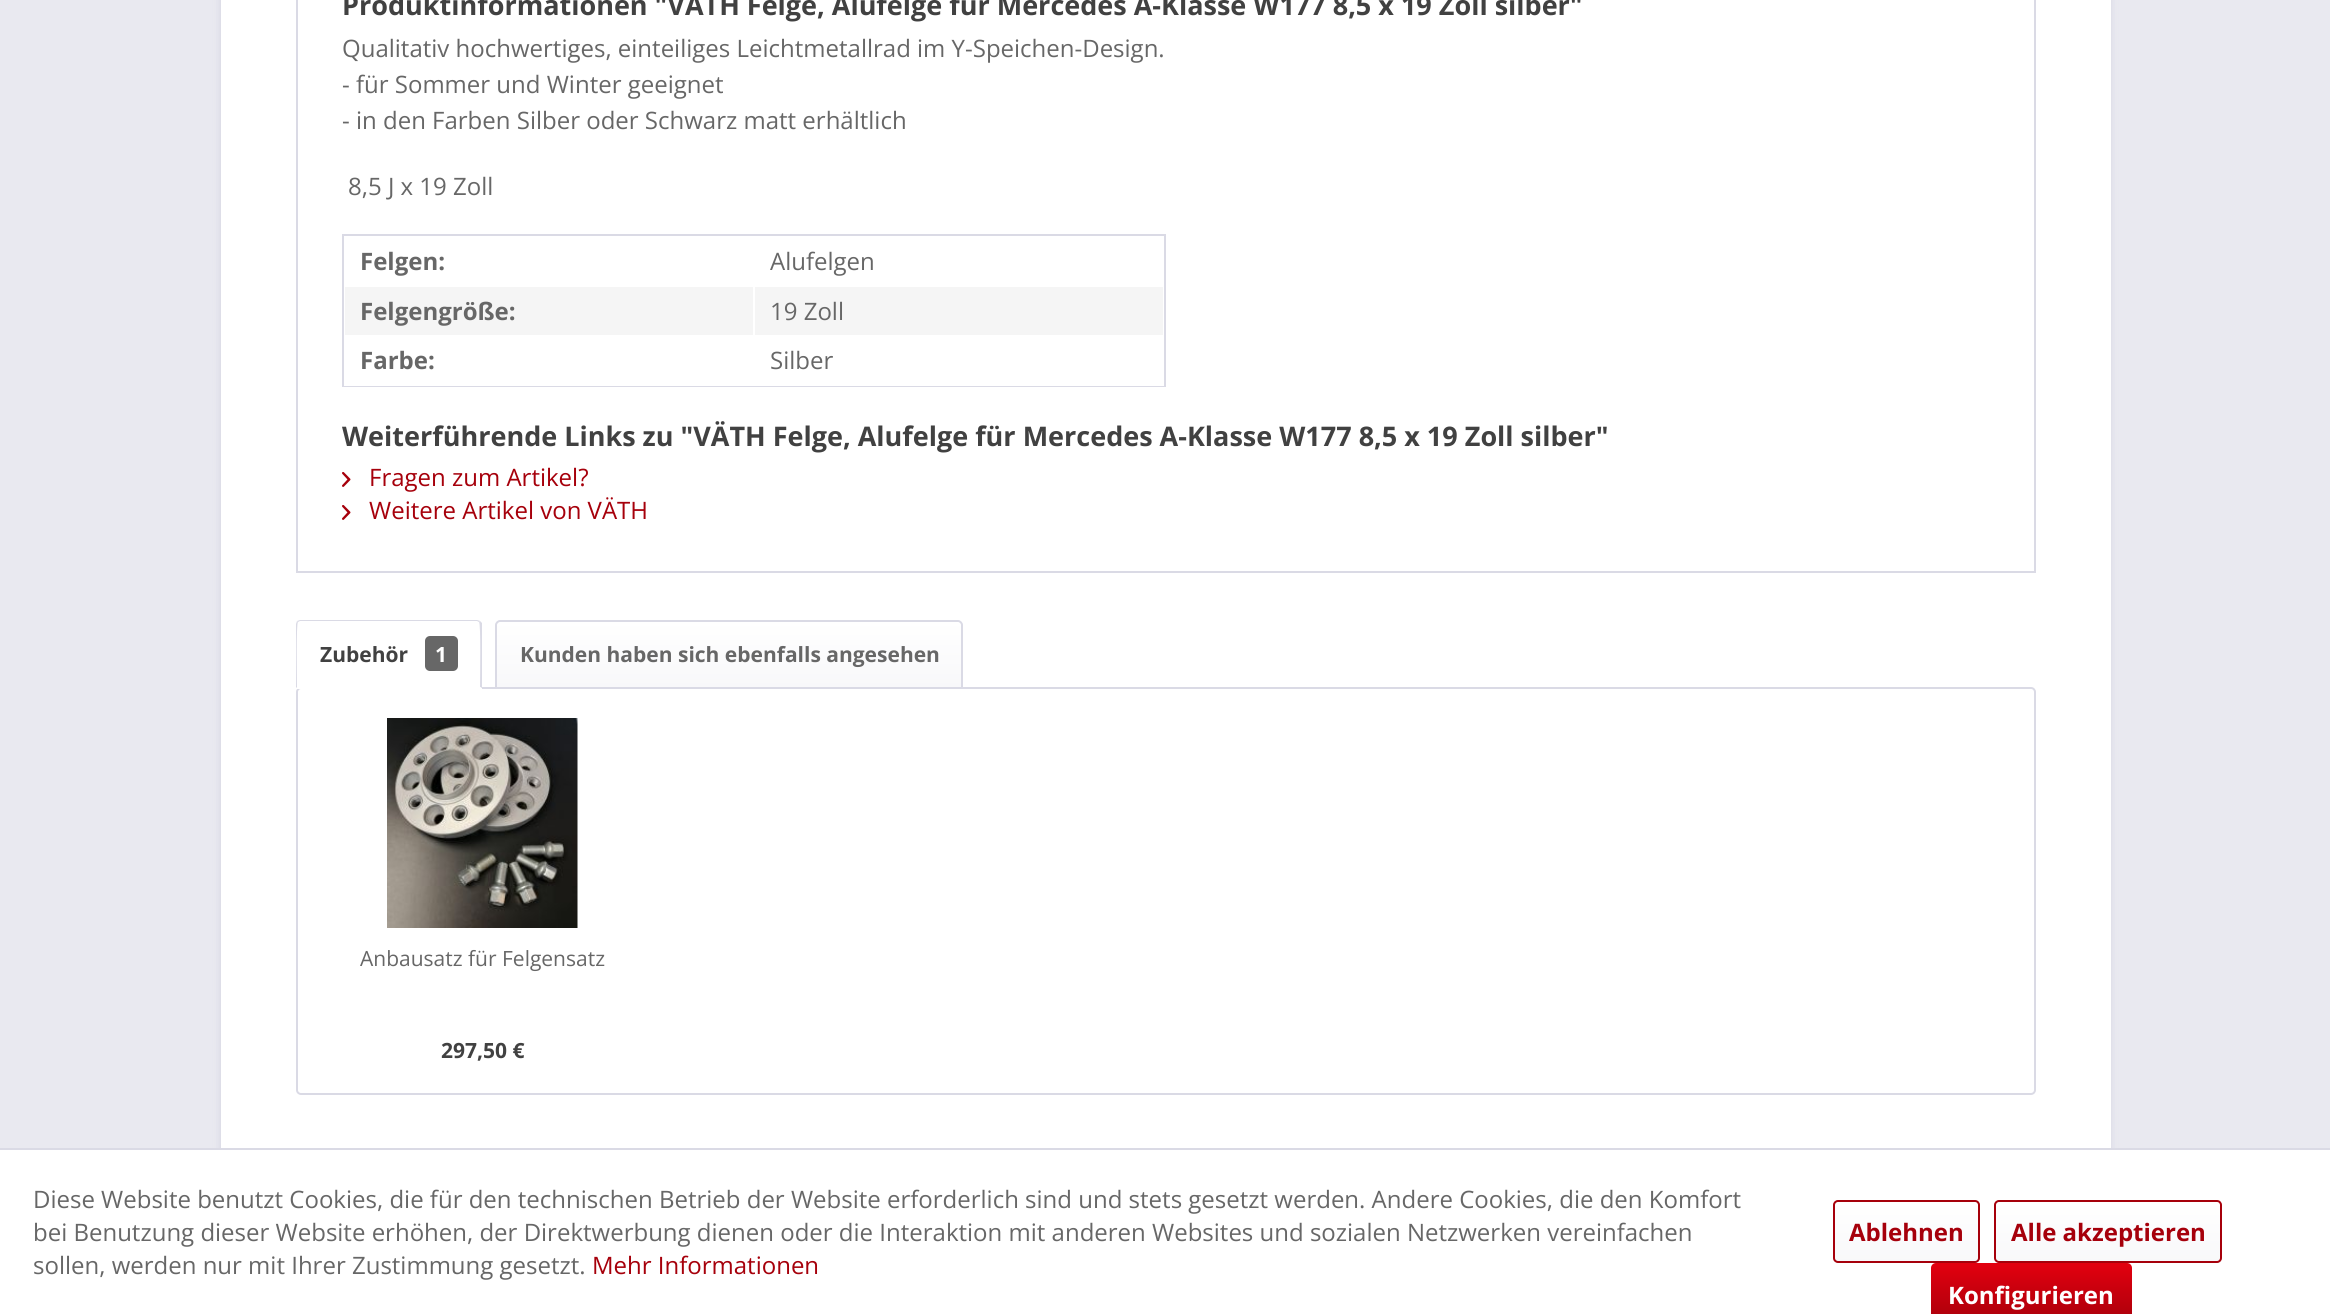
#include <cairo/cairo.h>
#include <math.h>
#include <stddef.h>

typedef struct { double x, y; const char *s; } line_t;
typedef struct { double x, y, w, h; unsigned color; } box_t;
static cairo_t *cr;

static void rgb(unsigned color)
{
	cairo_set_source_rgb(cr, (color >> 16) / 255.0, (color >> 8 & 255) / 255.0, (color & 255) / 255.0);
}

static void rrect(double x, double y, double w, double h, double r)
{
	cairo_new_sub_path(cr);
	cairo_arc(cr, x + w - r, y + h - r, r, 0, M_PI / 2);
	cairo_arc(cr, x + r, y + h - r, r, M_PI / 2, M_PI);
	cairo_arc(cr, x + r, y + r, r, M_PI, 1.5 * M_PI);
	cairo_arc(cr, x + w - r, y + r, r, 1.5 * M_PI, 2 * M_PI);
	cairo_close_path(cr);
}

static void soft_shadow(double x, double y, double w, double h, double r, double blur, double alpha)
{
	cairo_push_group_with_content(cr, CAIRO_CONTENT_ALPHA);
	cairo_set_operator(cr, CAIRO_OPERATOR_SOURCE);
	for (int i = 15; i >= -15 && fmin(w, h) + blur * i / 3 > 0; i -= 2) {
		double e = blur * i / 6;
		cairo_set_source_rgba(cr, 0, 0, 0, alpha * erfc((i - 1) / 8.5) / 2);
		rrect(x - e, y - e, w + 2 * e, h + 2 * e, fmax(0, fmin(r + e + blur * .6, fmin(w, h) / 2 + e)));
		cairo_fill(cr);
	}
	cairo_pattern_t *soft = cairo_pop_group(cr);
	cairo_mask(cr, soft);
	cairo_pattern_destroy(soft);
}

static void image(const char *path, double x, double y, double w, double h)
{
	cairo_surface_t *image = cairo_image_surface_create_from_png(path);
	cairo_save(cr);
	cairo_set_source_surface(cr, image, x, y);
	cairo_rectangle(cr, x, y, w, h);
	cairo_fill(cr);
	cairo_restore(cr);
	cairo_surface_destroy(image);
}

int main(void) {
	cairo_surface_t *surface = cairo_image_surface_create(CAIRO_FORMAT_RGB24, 2330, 1314);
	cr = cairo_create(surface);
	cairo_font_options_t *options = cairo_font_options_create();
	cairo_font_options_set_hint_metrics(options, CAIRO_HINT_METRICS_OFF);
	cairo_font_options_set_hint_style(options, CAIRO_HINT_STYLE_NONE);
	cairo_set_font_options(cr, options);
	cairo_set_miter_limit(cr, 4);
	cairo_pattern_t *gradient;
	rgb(0xe9e9f0);
	cairo_paint(cr);
	rgb(0xdadae5);
	soft_shadow(219, -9, 1893, 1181, 0, 3, 1);
	rgb(0xffffff);
	cairo_rectangle(cr, 221, 0, 1890, 1148);
	cairo_fill(cr);
	cairo_rectangle(cr, 297, -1, 1738, 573);
	rgb(0xdadae5);
	cairo_stroke(cr);
	cairo_rectangle(cr, 343, 235, 822, 151);
	cairo_stroke(cr);
	{
		static const box_t items[] = {
			{344, 385, 820, 1, 0xffffff},
			{345, 287, 408, 48, 0xf5f5f5},
			{755, 287, 408, 48, 0xf5f5f5},
		};
		for (size_t i = 0; i < sizeof items / sizeof *items; i++) {
			rgb(items[i].color);
			cairo_rectangle(cr, items[i].x, items[i].y, items[i].w, items[i].h);
			cairo_fill(cr);
		}
	}
	image("img/1.png", 342, 472, 9, 15);
	image("img/1.png", 342, 505, 9, 15);
	rrect(297, 688, 1738, 406, 4);
	rgb(0xdadae5);
	cairo_stroke(cr);
	rgb(0xffffff);
	cairo_new_path(cr);
	cairo_move_to(cr, 301, 620);
	cairo_line_to(cr, 477, 620);
	cairo_curve_to(cr, 480, 620, 482, 622, 482, 625);
	cairo_line_to(cr, 482, 689);
	cairo_line_to(cr, 296, 689);
	cairo_line_to(cr, 296, 625);
	cairo_curve_to(cr, 296, 622, 298, 620, 301, 620);
	cairo_close_path(cr);
	cairo_fill(cr);
	rgb(0xdadae5);
	cairo_new_path(cr);
	cairo_move_to(cr, 300, 620);
	cairo_line_to(cr, 297, 621);
	cairo_line_to(cr, 298, 622);
	cairo_line_to(cr, 300, 621);
	cairo_line_to(cr, 477, 621);
	cairo_line_to(cr, 479, 622);
	cairo_line_to(cr, 480, 621);
	cairo_line_to(cr, 477, 620);
	cairo_close_path(cr);
	cairo_fill(cr);
	cairo_new_path(cr);
	cairo_move_to(cr, 482, 688);
	cairo_line_to(cr, 480, 687);
	cairo_curve_to(cr, 480, 680, 481, 623, 479, 622);
	cairo_line_to(cr, 480, 621);
	cairo_line_to(cr, 482, 623);
	cairo_close_path(cr);
	cairo_fill(cr);
	rgb(0xffffff);
	cairo_new_path(cr);
	cairo_move_to(cr, 481, 688);
	cairo_line_to(cr, 296, 688);
	cairo_line_to(cr, 297, 687);
	cairo_line_to(cr, 480, 687);
	cairo_close_path(cr);
	cairo_fill(cr);
	rgb(0xdadae5);
	cairo_new_path(cr);
	cairo_move_to(cr, 297, 621);
	cairo_line_to(cr, 296, 624);
	cairo_line_to(cr, 296, 688);
	cairo_line_to(cr, 297, 687);
	cairo_curve_to(cr, 297, 680, 296, 623, 298, 622);
	cairo_close_path(cr);
	cairo_fill(cr);
	rgb(0x676767);
	rrect(425, 636, 33, 35, 5);
	cairo_fill(cr);
	gradient = cairo_pattern_create_linear(729, 621, 729, 687);
	cairo_pattern_add_color_stop_rgba(gradient, 0, 1, 1, 1, 1);
	cairo_pattern_add_color_stop_rgba(gradient, 1, 0.973, 0.973, 0.98, 1);
	cairo_set_source(cr, gradient);
	cairo_pattern_destroy(gradient);
	cairo_new_path(cr);
	cairo_move_to(cr, 500, 621);
	cairo_line_to(cr, 959, 621);
	cairo_curve_to(cr, 960.5, 621, 962, 622.5, 962, 624);
	cairo_line_to(cr, 962, 687);
	cairo_line_to(cr, 497, 687);
	cairo_line_to(cr, 497, 624);
	cairo_curve_to(cr, 497, 622.5, 498.5, 621, 500, 621);
	cairo_close_path(cr);
	cairo_fill(cr);
	cairo_new_path(cr);
	cairo_move_to(cr, 500, 621);
	cairo_line_to(cr, 958, 621);
	cairo_curve_to(cr, 960, 621, 962, 623, 962, 625);
	cairo_line_to(cr, 962, 688);
	cairo_line_to(cr, 496, 688);
	cairo_line_to(cr, 496, 625);
	cairo_curve_to(cr, 496, 623, 498, 621, 500, 621);
	cairo_close_path(cr);
	rgb(0xdadae5);
	cairo_stroke(cr);
	image("img/2.png", 387, 718, 191, 210);
	rgb(0xffffff);
	cairo_rectangle(cr, 0, 1150, 2330, 164);
	cairo_fill(cr);
	rgb(0xdadae5);
	cairo_rectangle(cr, 0, 1148, 2330, 2);
	cairo_fill(cr);
	gradient = cairo_pattern_create_linear(1907, 1202, 1907, 1262);
	cairo_pattern_add_color_stop_rgba(gradient, 0, 1, 1, 1, 1);
	cairo_pattern_add_color_stop_rgba(gradient, 1, 0.973, 0.973, 0.98, 1);
	cairo_set_source(cr, gradient);
	cairo_pattern_destroy(gradient);
	rrect(1835, 1202, 144, 60, 3);
	cairo_fill(cr);
	rrect(1834, 1201, 145, 61, 4);
	rgb(0xa6000b);
	cairo_stroke(cr);
	gradient = cairo_pattern_create_linear(2108, 1202, 2108, 1262);
	cairo_pattern_add_color_stop_rgba(gradient, 0, 1, 1, 1, 1);
	cairo_pattern_add_color_stop_rgba(gradient, 1, 0.973, 0.973, 0.98, 1);
	cairo_set_source(cr, gradient);
	cairo_pattern_destroy(gradient);
	rrect(1995, 1202, 225, 60, 3);
	cairo_fill(cr);
	rrect(1995, 1201, 226, 61, 4);
	rgb(0xa6000b);
	cairo_stroke(cr);
	gradient = cairo_pattern_create_linear(2031, 1263, 2031, 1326);
	cairo_pattern_add_color_stop_rgba(gradient, 0, 0.89, 0, 0.059, 1);
	cairo_pattern_add_color_stop_rgba(gradient, 1, 0.651, 0, 0.043, 1);
	cairo_set_source(cr, gradient);
	cairo_pattern_destroy(gradient);
	rrect(1931, 1263, 201, 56, 5);
	cairo_fill(cr);
	cairo_select_font_face(cr, "Open Sans", CAIRO_FONT_SLANT_NORMAL, CAIRO_FONT_WEIGHT_BOLD);
	cairo_set_font_size(cr, 27);
	rgb(0x414141);
	cairo_move_to(cr, 342, 15);
	cairo_show_text(cr, "Produktinformationen \"VÄTH Felge, Alufelge für Mercedes A-Klasse W177 8,5 x 19 Zoll silber\"");
	cairo_select_font_face(cr, "Open Sans", CAIRO_FONT_SLANT_NORMAL, CAIRO_FONT_WEIGHT_NORMAL);
	cairo_set_font_size(cr, 24);
	rgb(0x676767);
	{
		static const line_t items[] = {
			{342, 57, "Qualitativ hochwertiges, einteiliges Leichtmetallrad im Y-Speichen-Design."},
			{342, 93, "- für Sommer und Winter geeignet"},
			{342, 129, "- in den Farben Silber oder Schwarz matt erhältlich"},
			{348, 195, "8,5 J x 19 Zoll"},
		};
		for (size_t i = 0; i < sizeof items / sizeof *items; i++) {
			cairo_move_to(cr, items[i].x, items[i].y);
			cairo_show_text(cr, items[i].s);
		}
	}
	cairo_select_font_face(cr, "Open Sans", CAIRO_FONT_SLANT_NORMAL, CAIRO_FONT_WEIGHT_BOLD);
	cairo_move_to(cr, 360, 270);
	cairo_show_text(cr, "Felgen:");
	cairo_select_font_face(cr, "Open Sans", CAIRO_FONT_SLANT_NORMAL, CAIRO_FONT_WEIGHT_NORMAL);
	cairo_move_to(cr, 770, 270);
	cairo_show_text(cr, "Alufelgen");
	cairo_select_font_face(cr, "Open Sans", CAIRO_FONT_SLANT_NORMAL, CAIRO_FONT_WEIGHT_BOLD);
	cairo_move_to(cr, 360, 320);
	cairo_show_text(cr, "Felgengröße:");
	cairo_select_font_face(cr, "Open Sans", CAIRO_FONT_SLANT_NORMAL, CAIRO_FONT_WEIGHT_NORMAL);
	cairo_move_to(cr, 770, 320);
	cairo_show_text(cr, "19 Zoll");
	cairo_select_font_face(cr, "Open Sans", CAIRO_FONT_SLANT_NORMAL, CAIRO_FONT_WEIGHT_BOLD);
	cairo_move_to(cr, 360, 369);
	cairo_show_text(cr, "Farbe:");
	cairo_select_font_face(cr, "Open Sans", CAIRO_FONT_SLANT_NORMAL, CAIRO_FONT_WEIGHT_NORMAL);
	cairo_move_to(cr, 770, 369);
	cairo_show_text(cr, "Silber");
	cairo_select_font_face(cr, "Open Sans", CAIRO_FONT_SLANT_NORMAL, CAIRO_FONT_WEIGHT_BOLD);
	cairo_set_font_size(cr, 27);
	rgb(0x414141);
	cairo_move_to(cr, 342, 446);
	cairo_show_text(cr, "Weiterführende Links zu \"VÄTH Felge, Alufelge für Mercedes A-Klasse W177 8,5 x 19 Zoll silber\"");
	cairo_select_font_face(cr, "Open Sans", CAIRO_FONT_SLANT_NORMAL, CAIRO_FONT_WEIGHT_NORMAL);
	cairo_set_font_size(cr, 24);
	rgb(0xa6000b);
	cairo_move_to(cr, 369, 486);
	cairo_show_text(cr, "Fragen zum Artikel?");
	cairo_move_to(cr, 369, 519);
	cairo_show_text(cr, "Weitere Artikel von VÄTH");
	cairo_select_font_face(cr, "Open Sans", CAIRO_FONT_SLANT_NORMAL, CAIRO_FONT_WEIGHT_BOLD);
	cairo_set_font_size(cr, 21);
	rgb(0x414141);
	cairo_move_to(cr, 320, 662);
	cairo_show_text(cr, "Zubehör");
	rgb(0xffffff);
	cairo_move_to(cr, 435, 662);
	cairo_show_text(cr, "1");
	rgb(0x676767);
	cairo_move_to(cr, 520, 662);
	cairo_show_text(cr, "Kunden haben sich ebenfalls angesehen");
	cairo_select_font_face(cr, "Open Sans", CAIRO_FONT_SLANT_NORMAL, CAIRO_FONT_WEIGHT_NORMAL);
	cairo_move_to(cr, 360, 966);
	cairo_show_text(cr, "Anbausatz für Felgensatz");
	cairo_select_font_face(cr, "Open Sans", CAIRO_FONT_SLANT_NORMAL, CAIRO_FONT_WEIGHT_BOLD);
	rgb(0x414141);
	cairo_move_to(cr, 441, 1058);
	cairo_show_text(cr, "297,50 €");
	cairo_select_font_face(cr, "Open Sans", CAIRO_FONT_SLANT_NORMAL, CAIRO_FONT_WEIGHT_NORMAL);
	cairo_set_font_size(cr, 24);
	rgb(0x676767);
	{
		static const line_t items[] = {
			{33, 1208, "Diese Website benutzt Cookies, die für den technischen Betrieb der Website erforderlich sind und stets gesetzt werden. Andere Cookies, die den Komfort"},
			{33, 1241, "bei Benutzung dieser Website erhöhen, der Direktwerbung dienen oder die Interaktion mit anderen Websites und sozialen Netzwerken vereinfachen"},
			{33, 1274, "sollen, werden nur mit Ihrer Zustimmung gesetzt."},
		};
		for (size_t i = 0; i < sizeof items / sizeof *items; i++) {
			cairo_move_to(cr, items[i].x, items[i].y);
			cairo_show_text(cr, items[i].s);
		}
	}
	rgb(0xa6000b);
	cairo_move_to(cr, 592, 1274);
	cairo_show_text(cr, "Mehr Informationen");
	cairo_select_font_face(cr, "Open Sans", CAIRO_FONT_SLANT_NORMAL, CAIRO_FONT_WEIGHT_BOLD);
	cairo_move_to(cr, 1849, 1241);
	cairo_show_text(cr, "Ablehnen");
	cairo_move_to(cr, 2011, 1241);
	cairo_show_text(cr, "Alle akzeptieren");
	rgb(0xffffff);
	cairo_move_to(cr, 1948, 1304);
	cairo_show_text(cr, "Konfigurieren");
	cairo_surface_write_to_png(surface, "page.png");
	cairo_font_options_destroy(options);
	cairo_destroy(cr);
	cairo_surface_destroy(surface);
	return 0;
}
